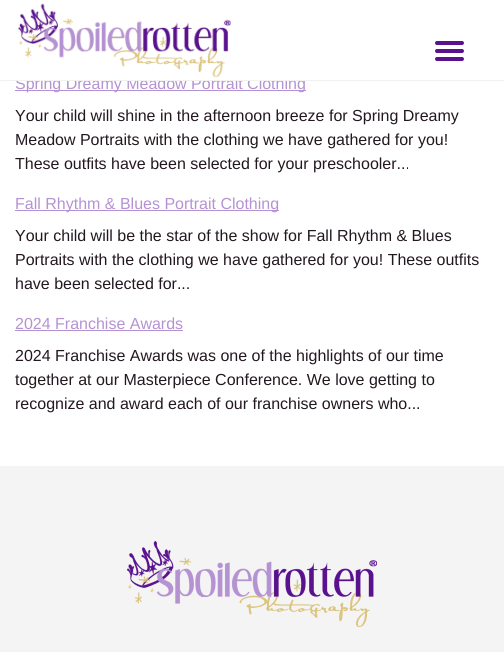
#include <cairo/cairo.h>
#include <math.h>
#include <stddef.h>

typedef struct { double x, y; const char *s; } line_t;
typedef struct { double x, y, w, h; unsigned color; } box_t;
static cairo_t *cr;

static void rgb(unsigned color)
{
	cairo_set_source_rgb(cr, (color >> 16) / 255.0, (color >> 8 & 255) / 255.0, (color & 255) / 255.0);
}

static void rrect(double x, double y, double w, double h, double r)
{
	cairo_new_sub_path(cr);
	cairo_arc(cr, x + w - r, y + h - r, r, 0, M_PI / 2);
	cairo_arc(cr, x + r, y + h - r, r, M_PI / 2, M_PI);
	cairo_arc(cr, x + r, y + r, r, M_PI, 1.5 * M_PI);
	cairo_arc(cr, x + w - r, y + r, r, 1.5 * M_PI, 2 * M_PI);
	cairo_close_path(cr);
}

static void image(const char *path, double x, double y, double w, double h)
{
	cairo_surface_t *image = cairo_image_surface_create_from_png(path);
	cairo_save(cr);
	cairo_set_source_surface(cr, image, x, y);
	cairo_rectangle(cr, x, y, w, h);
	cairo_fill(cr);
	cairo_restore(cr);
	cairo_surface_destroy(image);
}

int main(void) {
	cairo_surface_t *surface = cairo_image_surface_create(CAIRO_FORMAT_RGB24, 504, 652);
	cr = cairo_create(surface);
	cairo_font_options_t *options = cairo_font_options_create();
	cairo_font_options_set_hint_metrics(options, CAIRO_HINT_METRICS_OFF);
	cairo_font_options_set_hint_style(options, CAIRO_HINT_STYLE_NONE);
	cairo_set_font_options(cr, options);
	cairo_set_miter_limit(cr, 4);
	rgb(0xffffff);
	cairo_paint(cr);
	rgb(0x59118e);
	rrect(435, 41, 29, 4, 2);
	cairo_fill(cr);
	rrect(435, 49, 29, 4, 2);
	cairo_fill(cr);
	rrect(435, 57, 29, 4, 2);
	cairo_fill(cr);
	{
		static const box_t items[] = {
			{15, 90, 291, 1, 0xb592d2},
			{15, 210, 264, 1, 0xb592d2},
			{15, 330, 168, 1, 0xb592d2},
			{0, 466, 504, 186, 0xf4f4f4},
		};
		for (size_t i = 0; i < sizeof items / sizeof *items; i++) {
			rgb(items[i].color);
			cairo_rectangle(cr, items[i].x, items[i].y, items[i].w, items[i].h);
			cairo_fill(cr);
		}
	}
	image("img/2.png", 127, 541, 250, 86);
	cairo_select_font_face(cr, "Liberation Sans", CAIRO_FONT_SLANT_NORMAL, CAIRO_FONT_WEIGHT_NORMAL);
	cairo_set_font_size(cr, 16);
	rgb(0xb592d2);
	cairo_move_to(cr, 15, 89);
	cairo_show_text(cr, "Spring Dreamy Meadow Portrait Clothing");
	rgb(0xffffff);
	cairo_rectangle(cr, 16, 77, 271, 3);
	cairo_fill(cr);
	image("img/1.png", 18, 3, 213, 75);
	rgb(0xf1f1f1);
	cairo_rectangle(cr, 0, 80, 504, 1);
	cairo_fill(cr);
	rgb(0x231820);
	{
		static const line_t items[] = {
			{15, 121, "Your child will shine in the afternoon breeze for Spring Dreamy"},
			{15, 145, "Meadow Portraits with the clothing we have gathered for you!"},
			{15, 169, "These outfits have been selected for your preschooler..."},
		};
		for (size_t i = 0; i < sizeof items / sizeof *items; i++) {
			cairo_move_to(cr, items[i].x, items[i].y);
			cairo_show_text(cr, items[i].s);
		}
	}
	rgb(0xb592d2);
	cairo_move_to(cr, 15, 209);
	cairo_show_text(cr, "Fall Rhythm & Blues Portrait Clothing");
	rgb(0x231820);
	{
		static const line_t items[] = {
			{15, 241, "Your child will be the star of the show for Fall Rhythm & Blues"},
			{15, 265, "Portraits with the clothing we have gathered for you! These outfits"},
			{15, 289, "have been selected for..."},
		};
		for (size_t i = 0; i < sizeof items / sizeof *items; i++) {
			cairo_move_to(cr, items[i].x, items[i].y);
			cairo_show_text(cr, items[i].s);
		}
	}
	rgb(0xb592d2);
	cairo_move_to(cr, 15, 329);
	cairo_show_text(cr, "2024 Franchise Awards");
	rgb(0x231820);
	{
		static const line_t items[] = {
			{15, 361, "2024 Franchise Awards was one of the highlights of our time"},
			{15, 385, "together at our Masterpiece Conference. We love getting to"},
			{15, 409, "recognize and award each of our franchise owners who..."},
		};
		for (size_t i = 0; i < sizeof items / sizeof *items; i++) {
			cairo_move_to(cr, items[i].x, items[i].y);
			cairo_show_text(cr, items[i].s);
		}
	}
	cairo_surface_write_to_png(surface, "page.png");
	cairo_font_options_destroy(options);
	cairo_destroy(cr);
	cairo_surface_destroy(surface);
	return 0;
}
